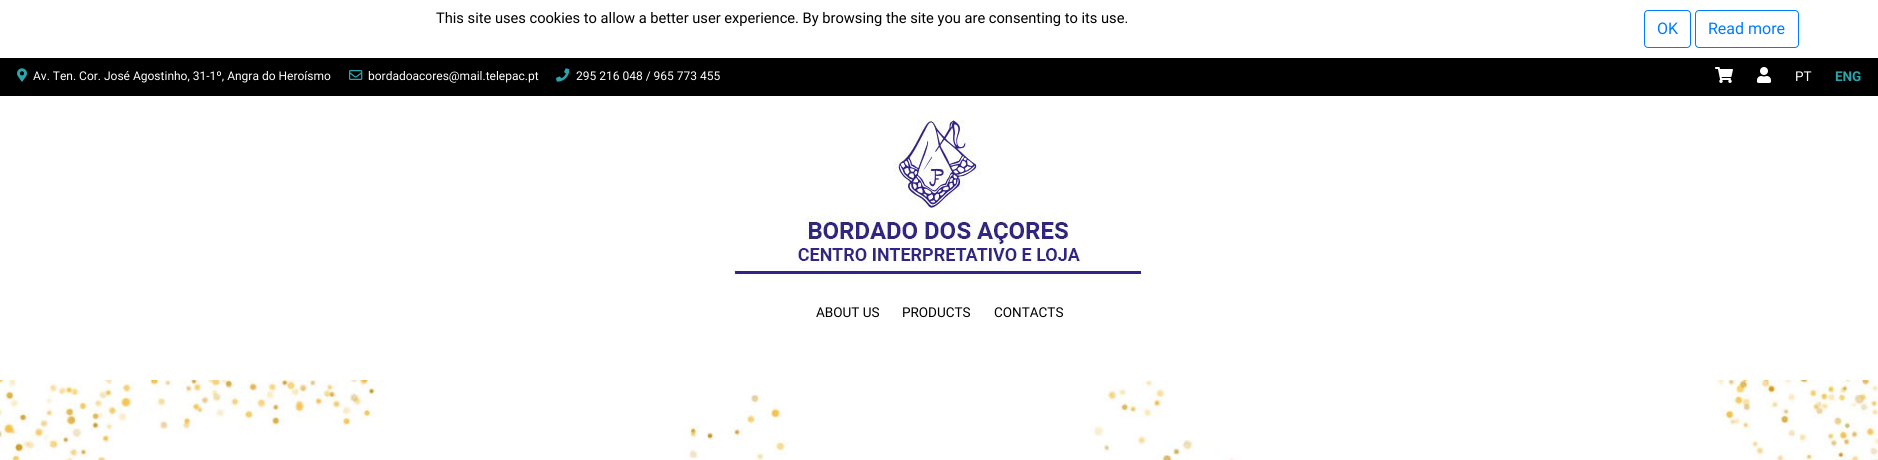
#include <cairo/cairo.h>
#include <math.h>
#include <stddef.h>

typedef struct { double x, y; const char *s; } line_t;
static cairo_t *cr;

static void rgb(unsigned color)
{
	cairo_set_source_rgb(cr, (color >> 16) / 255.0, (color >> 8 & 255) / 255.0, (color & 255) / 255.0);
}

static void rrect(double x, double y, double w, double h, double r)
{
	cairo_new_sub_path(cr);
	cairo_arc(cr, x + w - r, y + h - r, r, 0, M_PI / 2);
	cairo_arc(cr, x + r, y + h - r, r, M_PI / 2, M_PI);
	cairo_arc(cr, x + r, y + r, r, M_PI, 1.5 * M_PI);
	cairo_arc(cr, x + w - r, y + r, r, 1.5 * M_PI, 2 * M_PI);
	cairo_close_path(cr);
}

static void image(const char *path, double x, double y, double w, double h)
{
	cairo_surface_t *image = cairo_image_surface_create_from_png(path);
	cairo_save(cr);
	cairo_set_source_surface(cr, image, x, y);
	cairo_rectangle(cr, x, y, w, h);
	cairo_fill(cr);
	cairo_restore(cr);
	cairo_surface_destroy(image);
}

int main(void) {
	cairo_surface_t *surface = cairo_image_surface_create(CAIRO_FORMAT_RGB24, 1878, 460);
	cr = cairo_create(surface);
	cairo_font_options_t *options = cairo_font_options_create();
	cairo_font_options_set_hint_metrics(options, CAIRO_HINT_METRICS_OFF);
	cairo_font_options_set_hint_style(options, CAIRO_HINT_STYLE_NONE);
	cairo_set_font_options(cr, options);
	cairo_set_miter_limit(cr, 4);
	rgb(0x000000);
	cairo_paint(cr);
	rgb(0xffffff);
	cairo_rectangle(cr, 0, 0, 1878, 58);
	cairo_fill(cr);
	rrect(1644.5, 10.5, 46, 37, 3.5);
	rgb(0x007bff);
	cairo_set_line_width(cr, 1);
	cairo_stroke(cr);
	rrect(1695.5, 10.5, 103, 37, 3.5);
	cairo_stroke(cr);
	image("img/1.png", 17, 68, 10, 14);
	image("img/2.png", 349, 70, 14, 10);
	image("img/3.png", 556, 68, 14, 14);
	image("img/4.png", 1715, 67, 18, 16);
	image("img/5.png", 1757, 67, 14, 16);
	rgb(0xffffff);
	cairo_rectangle(cr, 0, 96, 1878, 284);
	cairo_fill(cr);
	image("img/6.png", 733, 120, 408, 160);
	image("img/7.png", 0, 380, 1878, 80);
	cairo_select_font_face(cr, "Roboto", CAIRO_FONT_SLANT_NORMAL, CAIRO_FONT_WEIGHT_NORMAL);
	cairo_set_font_size(cr, 14.65);
	rgb(0x000000);
	cairo_move_to(cr, 436, 23);
	cairo_show_text(cr, "This site uses cookies to allow a better user experience. By browsing the site you are consenting to its use.");
	cairo_set_font_size(cr, 16);
	rgb(0x007bff);
	cairo_move_to(cr, 1657, 34);
	cairo_show_text(cr, "OK");
	cairo_move_to(cr, 1708, 34);
	cairo_show_text(cr, "Read more");
	cairo_set_font_size(cr, 12);
	rgb(0xffffff);
	{
		static const line_t items[] = {
			{33, 80, "Av. Ten. Cor. José Agostinho, 31-1º, Angra do Heroísmo"},
			{368, 80, "bordadoacores@mail.telepac.pt"},
			{576, 80, "295 216 048 / 965 773 455"},
		};
		for (size_t i = 0; i < sizeof items / sizeof *items; i++) {
			cairo_move_to(cr, items[i].x, items[i].y);
			cairo_show_text(cr, items[i].s);
		}
	}
	cairo_set_font_size(cr, 13.5);
	cairo_move_to(cr, 1795, 81);
	cairo_show_text(cr, "PT");
	cairo_select_font_face(cr, "Roboto", CAIRO_FONT_SLANT_NORMAL, CAIRO_FONT_WEIGHT_BOLD);
	rgb(0x2aa5ab);
	cairo_move_to(cr, 1835, 81);
	cairo_show_text(cr, "ENG");
	cairo_select_font_face(cr, "Roboto", CAIRO_FONT_SLANT_NORMAL, CAIRO_FONT_WEIGHT_NORMAL);
	rgb(0x000000);
	{
		static const line_t items[] = {
			{816, 317, "ABOUT US"},
			{902, 317, "PRODUCTS"},
			{994, 317, "CONTACTS"},
		};
		for (size_t i = 0; i < sizeof items / sizeof *items; i++) {
			cairo_move_to(cr, items[i].x, items[i].y);
			cairo_show_text(cr, items[i].s);
		}
	}
	cairo_surface_write_to_png(surface, "page.png");
	cairo_font_options_destroy(options);
	cairo_destroy(cr);
	cairo_surface_destroy(surface);
	return 0;
}
